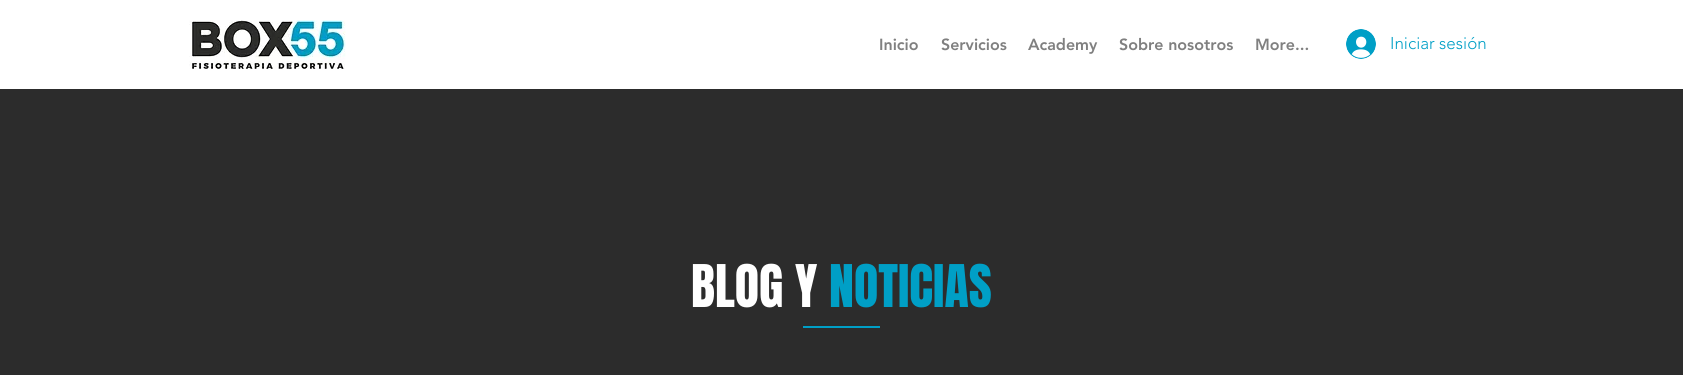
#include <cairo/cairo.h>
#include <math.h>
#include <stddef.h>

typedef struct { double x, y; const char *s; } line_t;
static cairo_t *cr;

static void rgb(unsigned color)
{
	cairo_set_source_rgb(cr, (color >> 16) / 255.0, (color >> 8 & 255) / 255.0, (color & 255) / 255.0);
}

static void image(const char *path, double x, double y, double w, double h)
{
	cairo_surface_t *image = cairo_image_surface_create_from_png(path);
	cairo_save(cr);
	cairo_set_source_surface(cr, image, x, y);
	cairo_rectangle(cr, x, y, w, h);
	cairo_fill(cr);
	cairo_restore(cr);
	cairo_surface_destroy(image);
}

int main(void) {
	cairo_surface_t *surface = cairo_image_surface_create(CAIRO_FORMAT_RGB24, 1683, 375);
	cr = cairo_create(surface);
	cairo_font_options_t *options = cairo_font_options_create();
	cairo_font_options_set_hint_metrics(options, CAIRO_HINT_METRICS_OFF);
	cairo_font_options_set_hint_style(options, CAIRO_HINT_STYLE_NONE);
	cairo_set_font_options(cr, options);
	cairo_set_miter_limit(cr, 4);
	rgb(0xffffff);
	cairo_paint(cr);
	image("img/1.png", 189, 20, 157, 49);
	image("img/2.png", 1346, 29, 30, 30);
	rgb(0x2c2c2c);
	cairo_rectangle(cr, 0, 89, 1683, 286);
	cairo_fill(cr);
	rgb(0x009fc6);
	cairo_rectangle(cr, 803, 326, 77, 2);
	cairo_fill(cr);
	cairo_select_font_face(cr, "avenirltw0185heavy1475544 Black", CAIRO_FONT_SLANT_NORMAL, CAIRO_FONT_WEIGHT_NORMAL);
	cairo_set_font_size(cr, 16);
	rgb(0x808080);
	{
		static const line_t items[] = {
			{879, 50, "Inicio"},
			{941, 50, "Servicios"},
			{1028, 50, "Academy"},
			{1119, 50, "Sobre nosotros"},
			{1255, 50, "More..."},
		};
		for (size_t i = 0; i < sizeof items / sizeof *items; i++) {
			cairo_move_to(cr, items[i].x, items[i].y);
			cairo_show_text(cr, items[i].s);
		}
	}
	cairo_select_font_face(cr, "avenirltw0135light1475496 Light", CAIRO_FONT_SLANT_NORMAL, CAIRO_FONT_WEIGHT_NORMAL);
	cairo_set_font_size(cr, 17);
	rgb(0x009fc6);
	cairo_move_to(cr, 1390, 49);
	cairo_show_text(cr, "Iniciar sesión");
	cairo_select_font_face(cr, "Anton", CAIRO_FONT_SLANT_NORMAL, CAIRO_FONT_WEIGHT_NORMAL);
	cairo_set_font_size(cr, 50);
	rgb(0xffffff);
	cairo_move_to(cr, 691, 307);
	cairo_show_text(cr, "BLOG Y");
	rgb(0x009fc6);
	cairo_move_to(cr, 829, 307);
	cairo_show_text(cr, "NOTICIAS");
	cairo_surface_write_to_png(surface, "page.png");
	cairo_font_options_destroy(options);
	cairo_destroy(cr);
	cairo_surface_destroy(surface);
	return 0;
}
